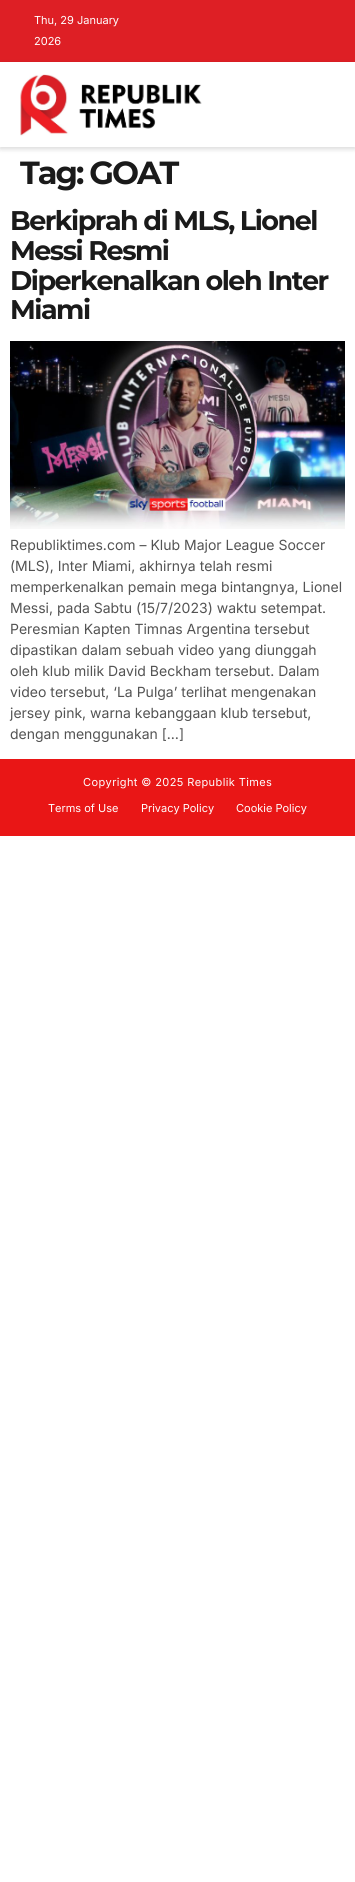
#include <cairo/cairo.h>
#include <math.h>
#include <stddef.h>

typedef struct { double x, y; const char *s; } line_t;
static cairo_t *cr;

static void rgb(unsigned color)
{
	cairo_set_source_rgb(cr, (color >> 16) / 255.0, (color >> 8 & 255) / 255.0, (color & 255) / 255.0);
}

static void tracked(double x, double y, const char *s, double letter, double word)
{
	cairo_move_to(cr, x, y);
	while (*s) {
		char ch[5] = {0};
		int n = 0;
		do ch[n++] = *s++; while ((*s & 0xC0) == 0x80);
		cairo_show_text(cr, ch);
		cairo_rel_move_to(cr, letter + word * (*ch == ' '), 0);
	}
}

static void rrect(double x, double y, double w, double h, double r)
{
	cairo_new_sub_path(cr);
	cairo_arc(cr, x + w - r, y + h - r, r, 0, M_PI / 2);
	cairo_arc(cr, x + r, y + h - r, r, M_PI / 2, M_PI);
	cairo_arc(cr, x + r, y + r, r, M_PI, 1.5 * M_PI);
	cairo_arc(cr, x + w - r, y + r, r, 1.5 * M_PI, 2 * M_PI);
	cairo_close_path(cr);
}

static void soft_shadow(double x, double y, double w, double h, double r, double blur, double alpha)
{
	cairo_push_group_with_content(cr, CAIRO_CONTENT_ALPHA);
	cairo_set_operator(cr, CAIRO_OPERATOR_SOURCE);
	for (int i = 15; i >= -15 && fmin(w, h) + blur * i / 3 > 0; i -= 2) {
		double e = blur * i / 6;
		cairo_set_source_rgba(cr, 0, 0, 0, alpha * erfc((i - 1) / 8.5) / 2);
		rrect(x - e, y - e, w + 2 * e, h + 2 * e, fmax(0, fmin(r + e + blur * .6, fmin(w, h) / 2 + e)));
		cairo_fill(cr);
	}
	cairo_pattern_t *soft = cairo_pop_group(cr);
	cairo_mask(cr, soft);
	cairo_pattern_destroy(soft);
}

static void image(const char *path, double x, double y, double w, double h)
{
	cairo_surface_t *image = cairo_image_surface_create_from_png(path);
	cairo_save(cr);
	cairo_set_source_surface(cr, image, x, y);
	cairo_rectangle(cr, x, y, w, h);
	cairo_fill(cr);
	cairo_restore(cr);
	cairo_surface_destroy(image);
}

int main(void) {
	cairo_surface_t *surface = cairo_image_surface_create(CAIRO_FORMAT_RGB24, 355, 1882);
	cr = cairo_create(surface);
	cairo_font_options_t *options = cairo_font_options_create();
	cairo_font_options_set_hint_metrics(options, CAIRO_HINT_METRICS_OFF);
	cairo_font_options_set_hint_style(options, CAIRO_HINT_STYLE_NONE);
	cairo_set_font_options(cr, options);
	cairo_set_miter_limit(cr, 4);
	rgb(0xffffff);
	cairo_paint(cr);
	rgb(0xde1f25);
	cairo_rectangle(cr, 0, 0, 355, 62);
	cairo_fill(cr);
	cairo_save(cr);
	cairo_set_fill_rule(cr, CAIRO_FILL_RULE_EVEN_ODD);
	cairo_new_path(cr);
	cairo_move_to(cr, 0, 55);
	cairo_line_to(cr, 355, 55);
	cairo_line_to(cr, 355, 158);
	cairo_line_to(cr, 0, 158);
	cairo_close_path(cr);
	cairo_move_to(cr, 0, 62);
	cairo_line_to(cr, 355, 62);
	cairo_line_to(cr, 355, 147);
	cairo_line_to(cr, 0, 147);
	cairo_close_path(cr);
	cairo_clip(cr);
	rgb(0x000000);
	soft_shadow(0, 64, 355, 85, 0, 2.5, 0.15);
	cairo_restore(cr);
	image("img/1.png", 20, 74, 182, 62);
	image("img/2.png", 10, 341, 335, 188);
	rgb(0xe91616);
	cairo_rectangle(cr, 0, 759, 355, 77);
	cairo_fill(cr);
	cairo_select_font_face(cr, "Inter", CAIRO_FONT_SLANT_NORMAL, CAIRO_FONT_WEIGHT_NORMAL);
	cairo_set_font_size(cr, 11);
	rgb(0xffffff);
	cairo_move_to(cr, 34, 24);
	cairo_show_text(cr, "Thu, 29 January");
	cairo_move_to(cr, 34, 45);
	cairo_show_text(cr, "2026");
	cairo_select_font_face(cr, "Montserrat", CAIRO_FONT_SLANT_NORMAL, CAIRO_FONT_WEIGHT_BOLD);
	cairo_set_font_size(cr, 32);
	rgb(0x1a1a1a);
	tracked(20, 184, "Tag: GOAT", -2, 0);
	cairo_set_font_size(cr, 27);
	{
		static const line_t items[] = {
			{10, 230, "Berkiprah di MLS, Lionel"},
			{10, 260, "Messi Resmi"},
			{10, 290, "Diperkenalkan oleh Inter"},
			{10, 319, "Miami"},
		};
		for (size_t i = 0; i < sizeof items / sizeof *items; i++) {
			tracked(items[i].x, items[i].y, items[i].s, -1.5, 0);
		}
	}
	cairo_select_font_face(cr, "Inter", CAIRO_FONT_SLANT_NORMAL, CAIRO_FONT_WEIGHT_NORMAL);
	cairo_set_font_size(cr, 14);
	rgb(0x535353);
	{
		static const line_t items[] = {
			{10, 550, "Republiktimes.com – Klub Major League Soccer"},
			{10, 571, "(MLS), Inter Miami, akhirnya telah resmi"},
			{10, 592, "memperkenalkan pemain mega bintangnya, Lionel"},
			{10, 613, "Messi, pada Sabtu (15/7/2023) waktu setempat."},
			{10, 634, "Peresmian Kapten Timnas Argentina tersebut"},
			{10, 655, "dipastikan dalam sebuah video yang diunggah"},
			{10, 676, "oleh klub milik David Beckham tersebut. Dalam"},
			{10, 697, "video tersebut, ‘La Pulga’ terlihat mengenakan"},
			{10, 718, "jersey pink, warna kebanggaan klub tersebut,"},
			{10, 739, "dengan menggunakan […]"},
		};
		for (size_t i = 0; i < sizeof items / sizeof *items; i++) {
			cairo_move_to(cr, items[i].x, items[i].y);
			cairo_show_text(cr, items[i].s);
		}
	}
	cairo_set_font_size(cr, 11);
	rgb(0xffffff);
	tracked(83, 786, "Copyright © 2025 Republik Times", 0.4, 0);
	{
		static const line_t items[] = {
			{48, 812, "Terms of Use"},
			{141, 812, "Privacy Policy"},
			{236, 812, "Cookie Policy"},
		};
		for (size_t i = 0; i < sizeof items / sizeof *items; i++) {
			cairo_move_to(cr, items[i].x, items[i].y);
			cairo_show_text(cr, items[i].s);
		}
	}
	cairo_surface_write_to_png(surface, "page.png");
	cairo_font_options_destroy(options);
	cairo_destroy(cr);
	cairo_surface_destroy(surface);
	return 0;
}
